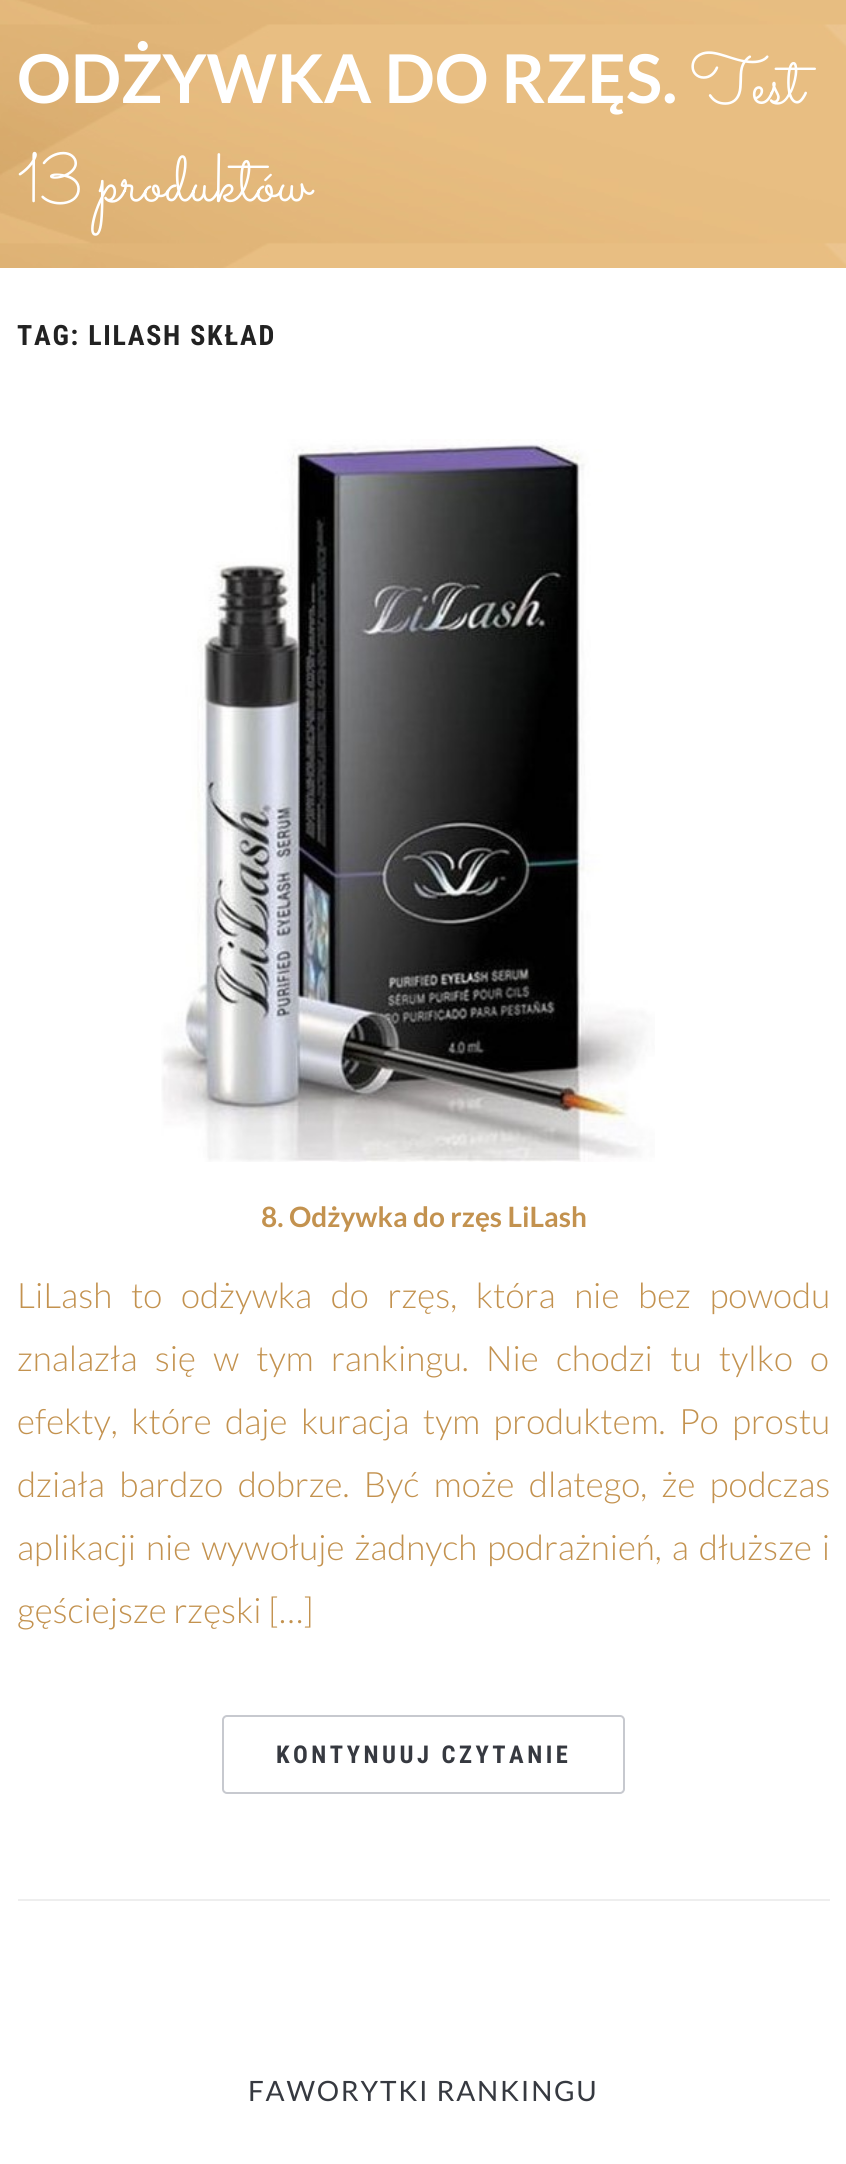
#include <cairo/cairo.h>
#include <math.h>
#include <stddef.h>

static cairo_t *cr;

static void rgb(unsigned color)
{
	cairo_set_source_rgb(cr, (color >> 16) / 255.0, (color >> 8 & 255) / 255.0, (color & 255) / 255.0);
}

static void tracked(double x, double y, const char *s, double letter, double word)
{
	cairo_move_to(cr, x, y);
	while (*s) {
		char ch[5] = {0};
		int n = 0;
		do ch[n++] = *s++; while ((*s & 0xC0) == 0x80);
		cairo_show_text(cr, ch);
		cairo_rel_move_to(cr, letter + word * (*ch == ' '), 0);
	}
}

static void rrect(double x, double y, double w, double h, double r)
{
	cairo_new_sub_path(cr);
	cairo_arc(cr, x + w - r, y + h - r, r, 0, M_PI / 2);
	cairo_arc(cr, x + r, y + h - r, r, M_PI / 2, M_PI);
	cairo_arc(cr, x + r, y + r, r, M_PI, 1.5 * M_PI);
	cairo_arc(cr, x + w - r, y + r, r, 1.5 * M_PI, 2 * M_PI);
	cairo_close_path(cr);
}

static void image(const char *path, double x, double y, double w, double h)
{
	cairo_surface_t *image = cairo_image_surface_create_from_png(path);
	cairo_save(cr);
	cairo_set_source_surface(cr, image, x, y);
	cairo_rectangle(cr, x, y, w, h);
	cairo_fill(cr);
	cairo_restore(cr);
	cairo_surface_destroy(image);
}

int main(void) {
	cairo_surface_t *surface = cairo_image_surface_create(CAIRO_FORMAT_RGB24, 846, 2164);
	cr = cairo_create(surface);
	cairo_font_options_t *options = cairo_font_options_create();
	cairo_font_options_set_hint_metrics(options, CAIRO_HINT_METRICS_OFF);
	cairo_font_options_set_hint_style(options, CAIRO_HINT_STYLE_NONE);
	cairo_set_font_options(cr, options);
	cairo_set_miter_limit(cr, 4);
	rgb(0xffffff);
	cairo_paint(cr);
	image("img/1.png", 0, 0, 846, 268);
	rgb(0xeeeeee);
	cairo_rectangle(cr, 18, 1899, 812, 2);
	cairo_fill(cr);
	image("img/2.png", 161, 439, 494, 723);
	rrect(223, 1716, 401, 77, 4);
	rgb(0xc7c9cf);
	cairo_stroke(cr);
	cairo_select_font_face(cr, "Lato", CAIRO_FONT_SLANT_NORMAL, CAIRO_FONT_WEIGHT_BOLD);
	cairo_set_font_size(cr, 67.25);
	rgb(0xffffff);
	cairo_move_to(cr, 17, 103);
	cairo_show_text(cr, "ODŻYWKA DO RZĘS.");
	cairo_select_font_face(cr, "Sacramento", CAIRO_FONT_SLANT_NORMAL, CAIRO_FONT_WEIGHT_NORMAL);
	cairo_set_font_size(cr, 70);
	cairo_move_to(cr, 690, 103);
	cairo_show_text(cr, "Test");
	cairo_move_to(cr, 17, 201);
	cairo_show_text(cr, "13 produktów");
	cairo_select_font_face(cr, "Roboto Condensed", CAIRO_FONT_SLANT_NORMAL, CAIRO_FONT_WEIGHT_BOLD);
	cairo_set_font_size(cr, 28);
	rgb(0x222222);
	tracked(17, 345, "TAG: LILASH SKŁAD", 1.75, 0);
	cairo_select_font_face(cr, "Lato", CAIRO_FONT_SLANT_NORMAL, CAIRO_FONT_WEIGHT_BOLD);
	rgb(0xc3924f);
	cairo_move_to(cr, 261, 1227);
	cairo_show_text(cr, "8. Odżywka do rzęs LiLash");
	cairo_select_font_face(cr, "Lato Light", CAIRO_FONT_SLANT_NORMAL, CAIRO_FONT_WEIGHT_NORMAL);
	cairo_set_font_size(cr, 35);
	tracked(17, 1308, "LiLash to odżywka do rzęs, która nie bez powodu", 0, 12);
	tracked(17, 1371, "znalazła się w tym rankingu. Nie chodzi tu tylko o", 0, 10.5);
	tracked(17, 1434, "efekty, które daje kuracja tym produktem. Po prostu", 0, 6.75);
	tracked(17, 1497, "działa bardzo dobrze. Być może dlatego, że podczas", 0, 7.75);
	tracked(17, 1560, "aplikacji nie wywołuje żadnych podrażnień, a dłuższe i", 0, 3.25);
	cairo_move_to(cr, 17, 1623);
	cairo_show_text(cr, "gęściejsze rzęski […]");
	cairo_select_font_face(cr, "Roboto Condensed", CAIRO_FONT_SLANT_NORMAL, CAIRO_FONT_WEIGHT_BOLD);
	cairo_set_font_size(cr, 24.5);
	rgb(0x363940);
	tracked(276, 1763, "KONTYNUUJ CZYTANIE", 3.5, 0);
	cairo_select_font_face(cr, "Lato", CAIRO_FONT_SLANT_NORMAL, CAIRO_FONT_WEIGHT_NORMAL);
	cairo_set_font_size(cr, 28);
	tracked(248, 2101, "FAWORYTKI RANKINGU", 1.75, 0);
	cairo_surface_write_to_png(surface, "page.png");
	cairo_font_options_destroy(options);
	cairo_destroy(cr);
	cairo_surface_destroy(surface);
	return 0;
}
